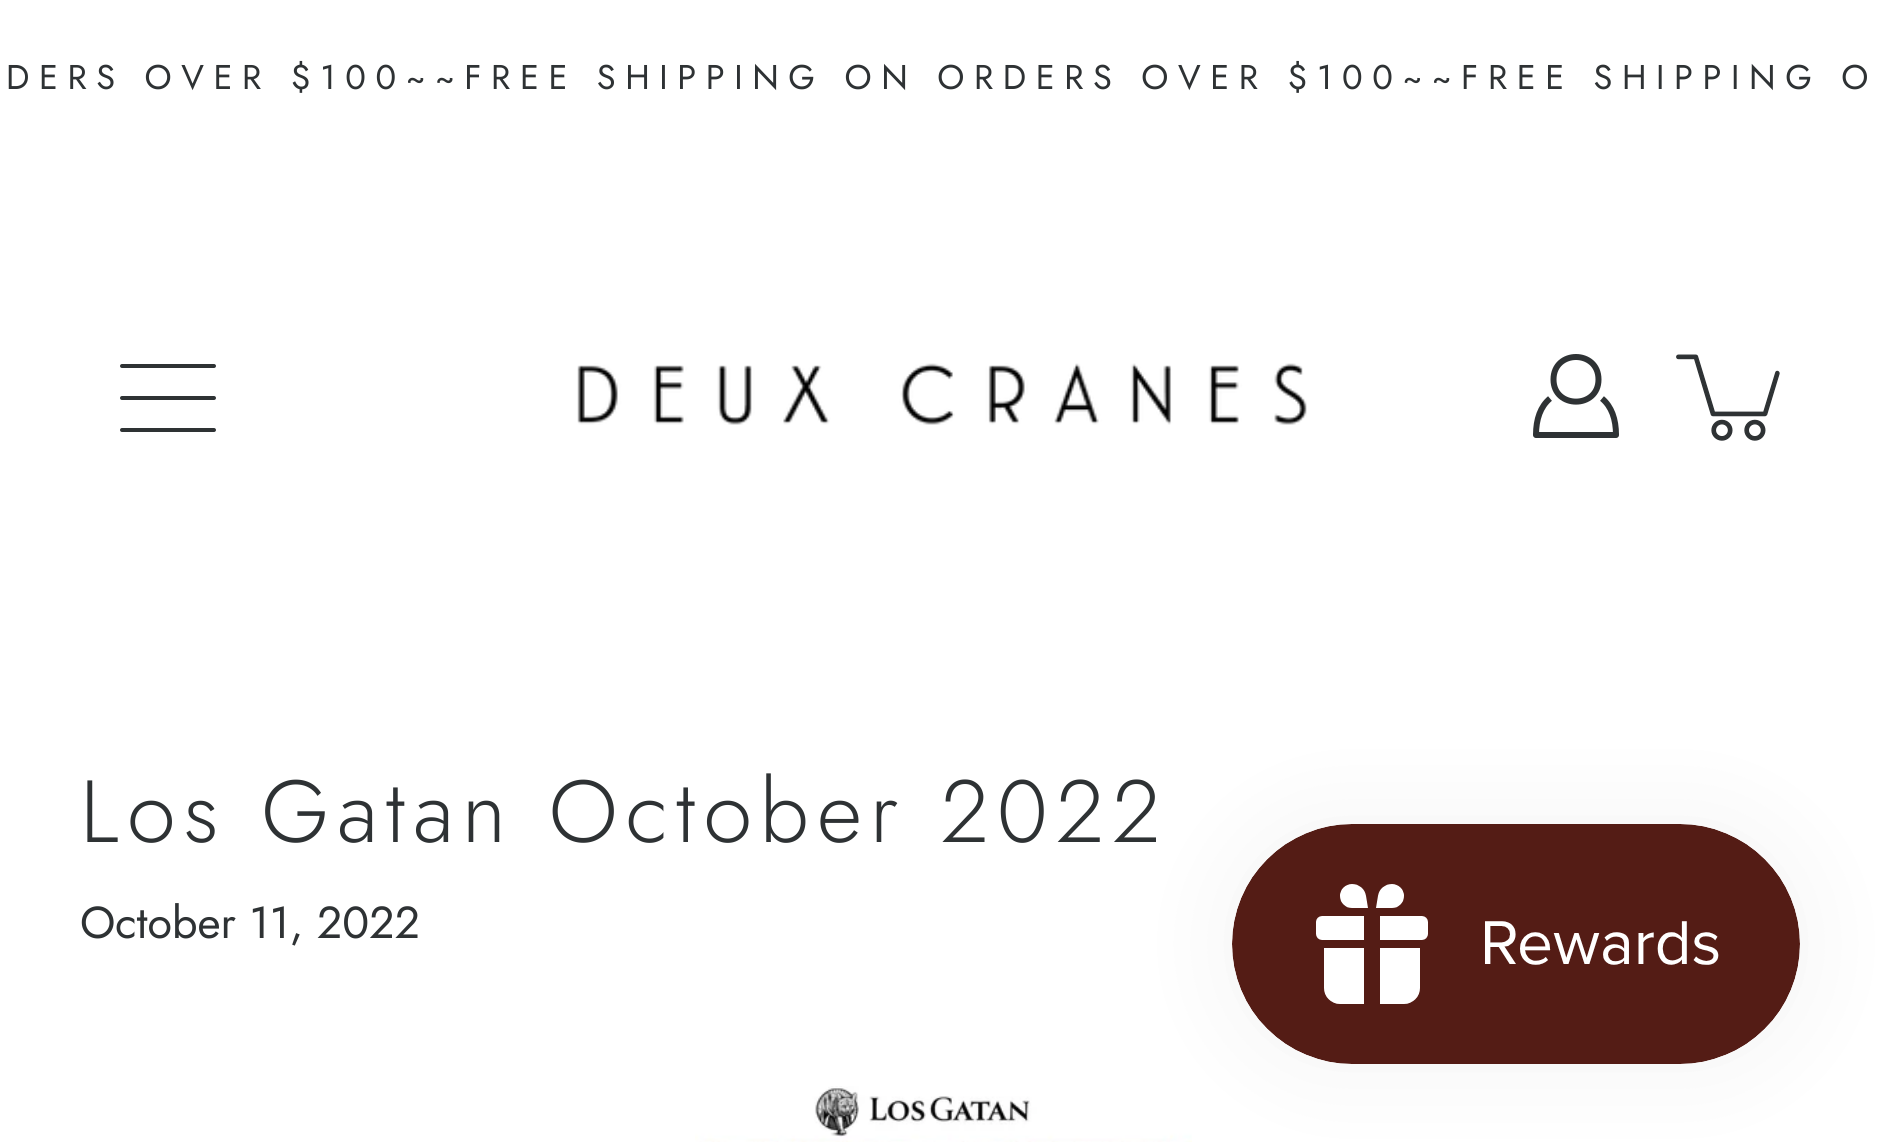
#include <cairo/cairo.h>
#include <math.h>
#include <stddef.h>

static cairo_t *cr;

static void rgb(unsigned color)
{
	cairo_set_source_rgb(cr, (color >> 16) / 255.0, (color >> 8 & 255) / 255.0, (color & 255) / 255.0);
}

static void tracked(double x, double y, const char *s, double letter, double word)
{
	cairo_move_to(cr, x, y);
	while (*s) {
		char ch[5] = {0};
		int n = 0;
		do ch[n++] = *s++; while ((*s & 0xC0) == 0x80);
		cairo_show_text(cr, ch);
		cairo_rel_move_to(cr, letter + word * (*ch == ' '), 0);
	}
}

static void rrect(double x, double y, double w, double h, double r)
{
	cairo_new_sub_path(cr);
	cairo_arc(cr, x + w - r, y + h - r, r, 0, M_PI / 2);
	cairo_arc(cr, x + r, y + h - r, r, M_PI / 2, M_PI);
	cairo_arc(cr, x + r, y + r, r, M_PI, 1.5 * M_PI);
	cairo_arc(cr, x + w - r, y + r, r, 1.5 * M_PI, 2 * M_PI);
	cairo_close_path(cr);
}

static void soft_shadow(double x, double y, double w, double h, double r, double blur, double alpha)
{
	cairo_push_group_with_content(cr, CAIRO_CONTENT_ALPHA);
	cairo_set_operator(cr, CAIRO_OPERATOR_SOURCE);
	for (int i = 15; i >= -15 && fmin(w, h) + blur * i / 3 > 0; i -= 2) {
		double e = blur * i / 6;
		cairo_set_source_rgba(cr, 0, 0, 0, alpha * erfc((i - 1) / 8.5) / 2);
		rrect(x - e, y - e, w + 2 * e, h + 2 * e, fmax(0, fmin(r + e + blur * .6, fmin(w, h) / 2 + e)));
		cairo_fill(cr);
	}
	cairo_pattern_t *soft = cairo_pop_group(cr);
	cairo_mask(cr, soft);
	cairo_pattern_destroy(soft);
}

static void image(const char *path, double x, double y, double w, double h)
{
	cairo_surface_t *image = cairo_image_surface_create_from_png(path);
	cairo_save(cr);
	cairo_set_source_surface(cr, image, x, y);
	cairo_rectangle(cr, x, y, w, h);
	cairo_fill(cr);
	cairo_restore(cr);
	cairo_surface_destroy(image);
}

int main(void) {
	cairo_surface_t *surface = cairo_image_surface_create(CAIRO_FORMAT_RGB24, 1879, 1142);
	cr = cairo_create(surface);
	cairo_font_options_t *options = cairo_font_options_create();
	cairo_font_options_set_hint_metrics(options, CAIRO_HINT_METRICS_OFF);
	cairo_font_options_set_hint_style(options, CAIRO_HINT_STYLE_NONE);
	cairo_set_font_options(cr, options);
	cairo_set_miter_limit(cr, 4);
	rgb(0xffffff);
	cairo_paint(cr);
	rgb(0x2e3234);
	rrect(120, 396, 96, 4, 2);
	cairo_fill(cr);
	rrect(120, 364, 96, 4, 2);
	cairo_fill(cr);
	rrect(120, 428, 96, 4, 2);
	cairo_fill(cr);
	cairo_new_path(cr);
	cairo_move_to(cr, 1598.5, 379.5);
	cairo_curve_to(cr, 1598.5, 409, 1553.5, 409, 1553.5, 379.5);
	cairo_curve_to(cr, 1553.5, 349.5, 1598.5, 349.5, 1598.5, 379.5);
	cairo_close_path(cr);
	cairo_set_line_width(cr, 6);
	cairo_stroke(cr);
	cairo_new_path(cr);
	cairo_move_to(cr, 1550, 398.5);
	cairo_curve_to(cr, 1540.5, 406.5, 1536, 419, 1536, 435);
	cairo_set_line_join(cr, CAIRO_LINE_JOIN_ROUND);
	cairo_stroke(cr);
	cairo_new_path(cr);
	cairo_move_to(cr, 1602, 398.5);
	cairo_curve_to(cr, 1611.5, 406.5, 1616, 419, 1616, 435);
	cairo_stroke(cr);
	cairo_new_path(cr);
	cairo_move_to(cr, 1536, 435);
	cairo_line_to(cr, 1616, 435);
	cairo_set_line_cap(cr, CAIRO_LINE_CAP_ROUND);
	cairo_stroke(cr);
	image("img/1.png", 1676, 354, 104, 87);
	image("img/2.png", 577, 363, 730, 62);
	image("img/3.png", 695, 1086, 497, 56);
	rgb(0x000000);
	soft_shadow(1232, 824, 568, 240, 120, 50, 0.05);
	image("img/4.png", 1232, 824, 568, 240);
	cairo_select_font_face(cr, "Jost", CAIRO_FONT_SLANT_NORMAL, CAIRO_FONT_WEIGHT_NORMAL);
	cairo_set_font_size(cr, 34.32);
	rgb(0x2e3234);
	tracked(6, 89, "DERS OVER $100~~FREE SHIPPING ON ORDERS OVER $100~~FREE SHIPPING O", 9.6, 0);
	cairo_select_font_face(cr, "Jost Light", CAIRO_FONT_SLANT_NORMAL, CAIRO_FONT_WEIGHT_NORMAL);
	cairo_set_font_size(cr, 88);
	tracked(80, 842, "Los Gatan October 2022", 8, 0);
	cairo_select_font_face(cr, "Jost", CAIRO_FONT_SLANT_NORMAL, CAIRO_FONT_WEIGHT_NORMAL);
	cairo_set_font_size(cr, 44.75);
	cairo_move_to(cr, 80, 938);
	cairo_show_text(cr, "October 11, 2022");
	cairo_surface_write_to_png(surface, "page.png");
	cairo_font_options_destroy(options);
	cairo_destroy(cr);
	cairo_surface_destroy(surface);
	return 0;
}
